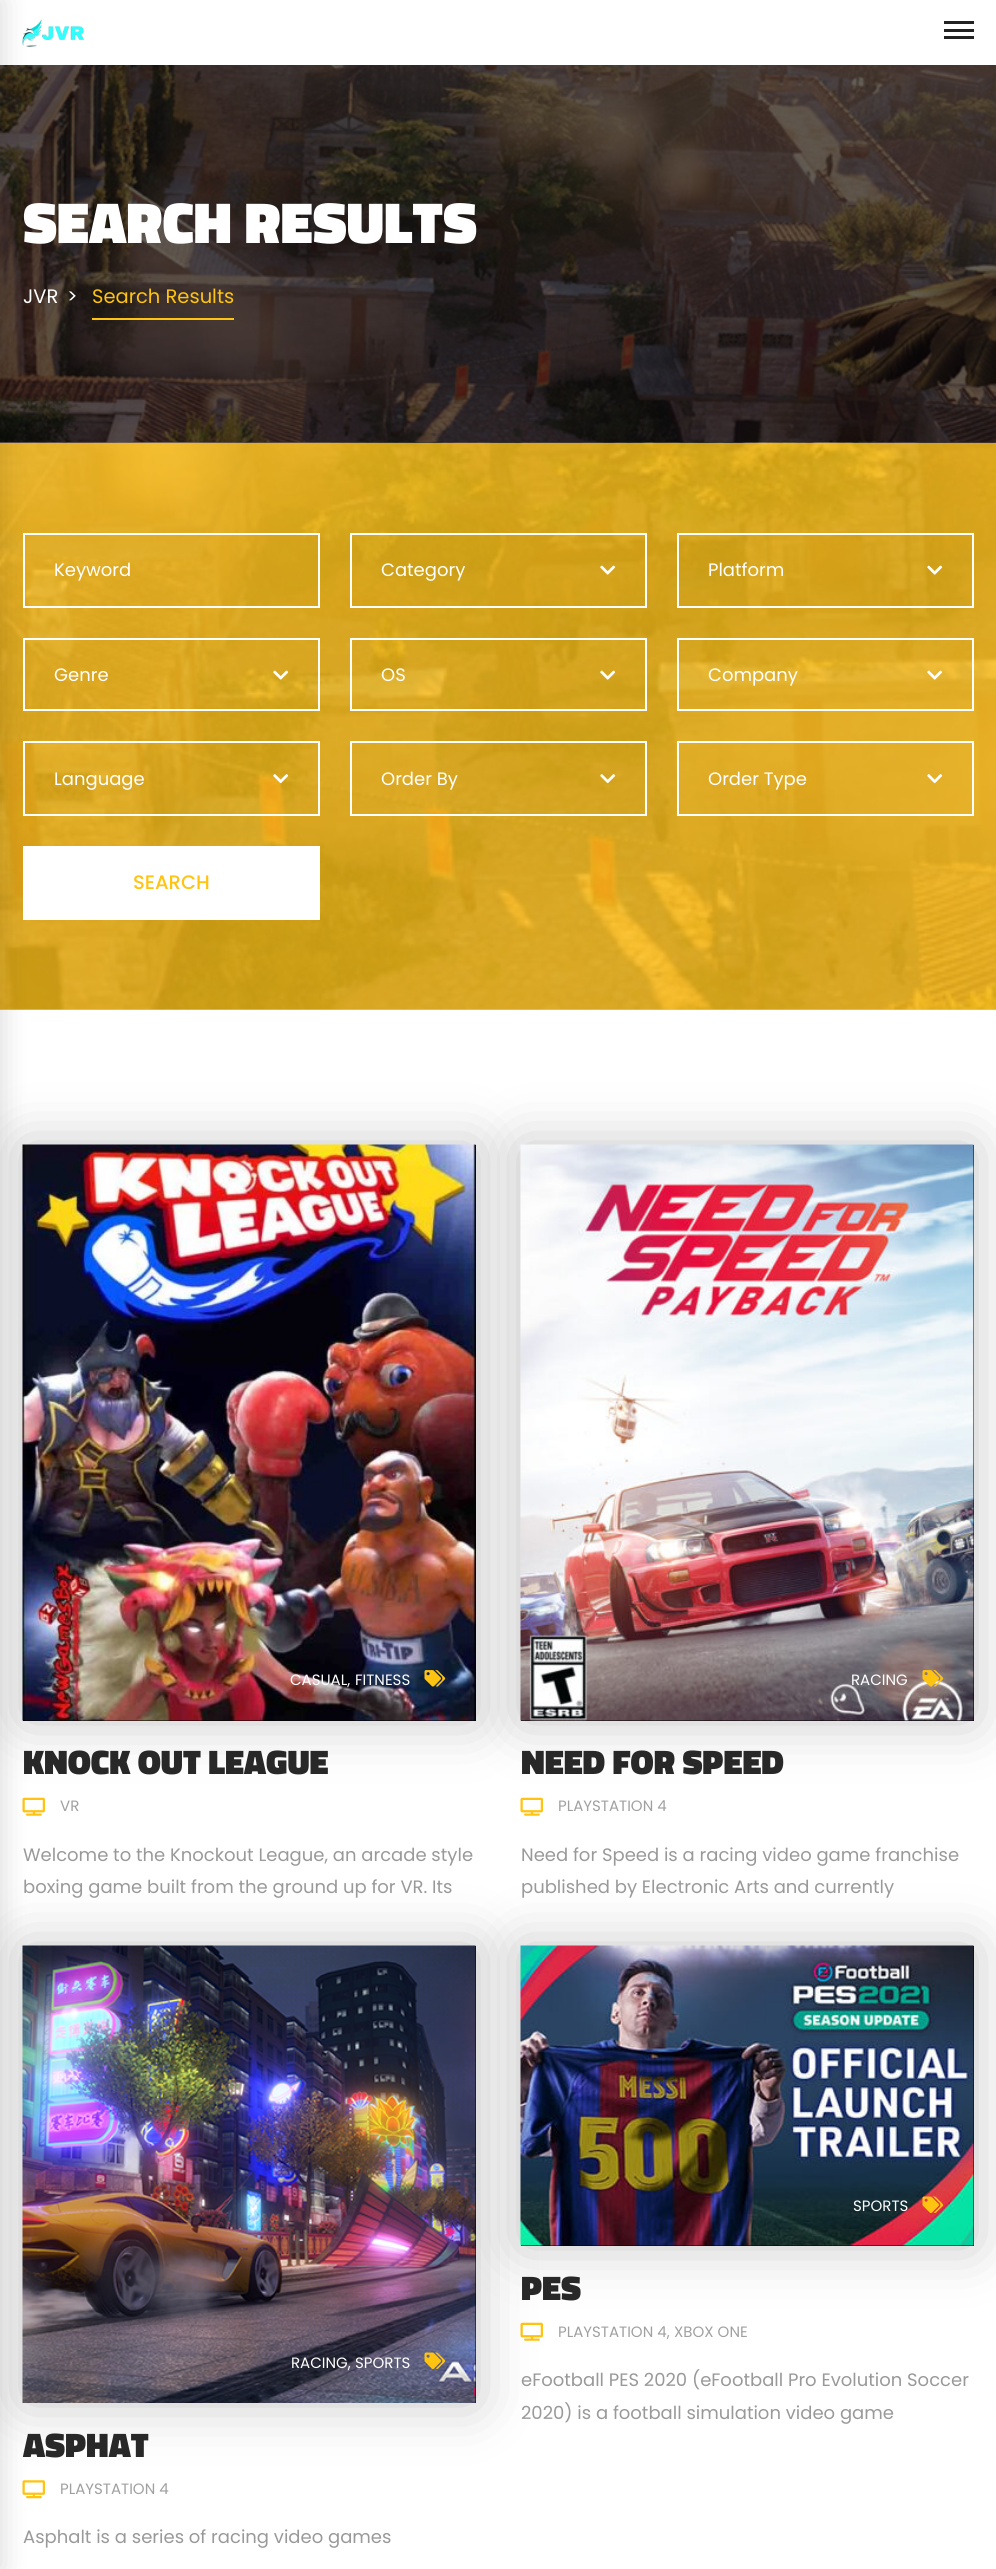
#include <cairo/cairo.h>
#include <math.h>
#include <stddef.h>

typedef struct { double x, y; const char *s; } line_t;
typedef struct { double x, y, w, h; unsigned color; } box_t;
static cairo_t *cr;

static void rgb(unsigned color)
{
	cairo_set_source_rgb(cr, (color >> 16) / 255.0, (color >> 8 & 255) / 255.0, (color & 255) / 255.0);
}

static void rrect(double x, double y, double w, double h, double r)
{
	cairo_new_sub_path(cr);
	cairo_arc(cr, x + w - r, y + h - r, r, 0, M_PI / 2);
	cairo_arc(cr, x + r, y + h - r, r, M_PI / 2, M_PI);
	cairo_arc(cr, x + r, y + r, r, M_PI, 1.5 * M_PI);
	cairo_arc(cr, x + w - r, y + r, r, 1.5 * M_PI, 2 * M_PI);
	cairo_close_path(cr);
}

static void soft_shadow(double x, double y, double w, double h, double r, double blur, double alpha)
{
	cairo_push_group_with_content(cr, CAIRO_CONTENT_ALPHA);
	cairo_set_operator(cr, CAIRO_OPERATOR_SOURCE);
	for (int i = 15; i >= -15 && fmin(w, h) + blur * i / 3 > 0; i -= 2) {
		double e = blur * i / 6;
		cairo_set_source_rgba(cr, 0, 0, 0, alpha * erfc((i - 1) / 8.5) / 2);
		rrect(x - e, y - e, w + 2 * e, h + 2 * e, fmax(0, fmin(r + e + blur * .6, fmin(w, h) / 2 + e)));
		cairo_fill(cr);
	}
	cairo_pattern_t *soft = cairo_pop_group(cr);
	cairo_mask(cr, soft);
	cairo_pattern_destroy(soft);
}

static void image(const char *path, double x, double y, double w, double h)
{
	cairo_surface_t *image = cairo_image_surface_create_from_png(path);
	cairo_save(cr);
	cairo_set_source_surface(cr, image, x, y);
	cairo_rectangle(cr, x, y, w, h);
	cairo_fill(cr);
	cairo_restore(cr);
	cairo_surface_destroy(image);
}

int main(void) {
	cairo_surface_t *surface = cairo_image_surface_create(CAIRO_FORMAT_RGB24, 996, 2569);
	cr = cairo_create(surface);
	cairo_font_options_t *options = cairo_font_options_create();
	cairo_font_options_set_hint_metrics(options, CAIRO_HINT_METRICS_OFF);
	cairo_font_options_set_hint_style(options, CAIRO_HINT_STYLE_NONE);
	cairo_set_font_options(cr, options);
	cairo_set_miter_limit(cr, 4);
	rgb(0xffffff);
	cairo_paint(cr);
	rgb(0xffd24d);
	cairo_rectangle(cr, 0, 1009, 996, 1);
	cairo_fill(cr);
	image("img/1.png", 22, 19, 62, 28);
	rgb(0x000000);
	cairo_rectangle(cr, 0, 65, 996, 378);
	cairo_fill(cr);
	image("img/2.png", 0, 65, 996, 378);
	image("img/3.png", 0, 442, 996, 568);
	cairo_rectangle(cr, 24, 534, 295, 73);
	rgb(0xffffff);
	cairo_stroke(cr);
	cairo_rectangle(cr, 24, 639, 295, 71);
	cairo_stroke(cr);
	cairo_rectangle(cr, 24, 742, 295, 73);
	cairo_stroke(cr);
	cairo_rectangle(cr, 23, 846, 297, 74);
	cairo_fill(cr);
	image("img/14.png", 22, 1797, 23, 19);
	image("img/14.png", 520, 1797, 23, 19);
	rgb(0x000000);
	soft_shadow(23, 1145, 453, 576, 0, 29, 0.23);
	rgb(0x000000);
	cairo_rectangle(cr, 23, 1145, 453, 576);
	cairo_fill(cr);
	image("img/12.png", 22, 1144, 454, 577);
	image("img/14.png", 520, 2322, 23, 19);
	image("img/21.png", 22, 2480, 23, 19);
	rgb(0x000000);
	soft_shadow(23, 1946, 453, 457, 0, 29, 0.23);
	rgb(0x000000);
	cairo_rectangle(cr, 475, 1946, 1, 457);
	cairo_fill(cr);
	image("img/19.png", 22, 1945, 454, 458);
	rgb(0x000000);
	soft_shadow(-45, 0, 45, 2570, 0, 15, 0.16);
	{
		static const box_t items[] = {
			{944, 21, 30, 3, 0x222222},
			{944, 29, 30, 3, 0x222222},
			{944, 36, 30, 3, 0x222222},
			{92, 318, 142, 2, 0xffc311},
		};
		for (size_t i = 0; i < sizeof items / sizeof *items; i++) {
			rgb(items[i].color);
			cairo_rectangle(cr, items[i].x, items[i].y, items[i].w, items[i].h);
			cairo_fill(cr);
		}
	}
	cairo_rectangle(cr, 351, 534, 295, 73);
	rgb(0xffffff);
	cairo_stroke(cr);
	image("img/4.png", 600, 565, 16, 10);
	cairo_rectangle(cr, 678, 534, 295, 73);
	cairo_stroke(cr);
	image("img/5.png", 927, 565, 16, 10);
	image("img/6.png", 273, 670, 16, 10);
	cairo_rectangle(cr, 351, 639, 295, 71);
	cairo_stroke(cr);
	image("img/7.png", 600, 670, 16, 10);
	cairo_rectangle(cr, 678, 639, 295, 71);
	cairo_stroke(cr);
	image("img/8.png", 927, 670, 16, 10);
	image("img/9.png", 273, 774, 16, 10);
	cairo_rectangle(cr, 351, 742, 295, 73);
	cairo_stroke(cr);
	image("img/10.png", 600, 774, 16, 10);
	cairo_rectangle(cr, 678, 742, 295, 73);
	cairo_stroke(cr);
	image("img/11.png", 927, 774, 16, 10);
	image("img/13.png", 424, 1670, 22, 17);
	rgb(0x000000);
	soft_shadow(521, 1145, 453, 576, 0, 29, 0.23);
	rgb(0x000000);
	cairo_rectangle(cr, 521, 1145, 453, 576);
	cairo_fill(cr);
	image("img/15.png", 520, 1144, 454, 577);
	image("img/16.png", 922, 1670, 22, 17);
	rgb(0x000000);
	soft_shadow(521, 1946, 453, 300, 0, 29, 0.23);
	rgb(0x000000);
	cairo_rectangle(cr, 521, 1946, 453, 300);
	cairo_fill(cr);
	image("img/17.png", 520, 1945, 454, 301);
	image("img/18.png", 922, 2196, 22, 17);
	image("img/20.png", 424, 2352, 22, 17);
	cairo_select_font_face(cr, "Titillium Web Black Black", CAIRO_FONT_SLANT_NORMAL, CAIRO_FONT_WEIGHT_NORMAL);
	cairo_set_font_size(cr, 58.5);
	rgb(0xffffff);
	cairo_move_to(cr, 23, 243);
	cairo_show_text(cr, "SEARCH RESULTS");
	cairo_select_font_face(cr, "Poppins", CAIRO_FONT_SLANT_NORMAL, CAIRO_FONT_WEIGHT_NORMAL);
	cairo_set_font_size(cr, 19.5);
	cairo_move_to(cr, 23, 303);
	cairo_show_text(cr, "JVR");
	cairo_move_to(cr, 67, 303);
	cairo_show_text(cr, ">");
	rgb(0xffc311);
	cairo_move_to(cr, 92, 303);
	cairo_show_text(cr, "Search Results");
	cairo_set_font_size(cr, 18);
	rgb(0xffffff);
	{
		static const line_t items[] = {
			{54, 576, "Keyword"},
			{381, 576, "Category"},
			{708, 576, "Platform"},
			{54, 681, "Genre"},
			{381, 681, "OS"},
			{708, 681, "Company"},
			{54, 785, "Language"},
			{381, 785, "Order By"},
			{708, 785, "Order Type"},
		};
		for (size_t i = 0; i < sizeof items / sizeof *items; i++) {
			cairo_move_to(cr, items[i].x, items[i].y);
			cairo_show_text(cr, items[i].s);
		}
	}
	cairo_select_font_face(cr, "Poppins Medium", CAIRO_FONT_SLANT_NORMAL, CAIRO_FONT_WEIGHT_NORMAL);
	cairo_set_font_size(cr, 19.5);
	rgb(0xffc311);
	cairo_move_to(cr, 133, 889);
	cairo_show_text(cr, "SEARCH");
	cairo_select_font_face(cr, "Poppins", CAIRO_FONT_SLANT_NORMAL, CAIRO_FONT_WEIGHT_NORMAL);
	cairo_set_font_size(cr, 15);
	rgb(0xffffff);
	cairo_move_to(cr, 290, 1685);
	cairo_show_text(cr, "CASUAL,");
	cairo_move_to(cr, 355, 1685);
	cairo_show_text(cr, "FITNESS");
	cairo_select_font_face(cr, "Titillium Web Black Black", CAIRO_FONT_SLANT_NORMAL, CAIRO_FONT_WEIGHT_NORMAL);
	cairo_set_font_size(cr, 34.5);
	rgb(0x282828);
	cairo_move_to(cr, 23, 1774);
	cairo_show_text(cr, "KNOCK OUT LEAGUE");
	cairo_select_font_face(cr, "Poppins", CAIRO_FONT_SLANT_NORMAL, CAIRO_FONT_WEIGHT_NORMAL);
	cairo_set_font_size(cr, 15);
	rgb(0xa0a0a0);
	cairo_move_to(cr, 60, 1811);
	cairo_show_text(cr, "VR");
	cairo_set_font_size(cr, 18);
	rgb(0x999999);
	cairo_move_to(cr, 23, 1861);
	cairo_show_text(cr, "Welcome to the Knockout League, an arcade style");
	cairo_move_to(cr, 23, 1893);
	cairo_show_text(cr, "boxing game built from the ground up for VR. Its");
	cairo_set_font_size(cr, 15);
	rgb(0xffffff);
	cairo_move_to(cr, 851, 1685);
	cairo_show_text(cr, "RACING");
	cairo_select_font_face(cr, "Titillium Web Black Black", CAIRO_FONT_SLANT_NORMAL, CAIRO_FONT_WEIGHT_NORMAL);
	cairo_set_font_size(cr, 34.5);
	rgb(0x282828);
	cairo_move_to(cr, 521, 1774);
	cairo_show_text(cr, "NEED FOR SPEED");
	cairo_select_font_face(cr, "Poppins", CAIRO_FONT_SLANT_NORMAL, CAIRO_FONT_WEIGHT_NORMAL);
	cairo_set_font_size(cr, 15);
	rgb(0xa0a0a0);
	cairo_move_to(cr, 558, 1811);
	cairo_show_text(cr, "PLAYSTATION 4");
	cairo_set_font_size(cr, 18);
	rgb(0x999999);
	cairo_move_to(cr, 521, 1861);
	cairo_show_text(cr, "Need for Speed is a racing video game franchise");
	cairo_move_to(cr, 521, 1893);
	cairo_show_text(cr, "published by Electronic Arts and currently");
	cairo_set_font_size(cr, 15);
	rgb(0xffffff);
	cairo_move_to(cr, 853, 2211);
	cairo_show_text(cr, "SPORTS");
	cairo_select_font_face(cr, "Titillium Web Black Black", CAIRO_FONT_SLANT_NORMAL, CAIRO_FONT_WEIGHT_NORMAL);
	cairo_set_font_size(cr, 34.5);
	rgb(0x282828);
	cairo_move_to(cr, 521, 2300);
	cairo_show_text(cr, "PES");
	cairo_select_font_face(cr, "Poppins", CAIRO_FONT_SLANT_NORMAL, CAIRO_FONT_WEIGHT_NORMAL);
	cairo_set_font_size(cr, 15);
	rgb(0xa0a0a0);
	cairo_move_to(cr, 558, 2337);
	cairo_show_text(cr, "PLAYSTATION 4,");
	cairo_move_to(cr, 674, 2337);
	cairo_show_text(cr, "XBOX ONE");
	cairo_set_font_size(cr, 18);
	rgb(0x999999);
	cairo_move_to(cr, 521, 2386);
	cairo_show_text(cr, "eFootball PES 2020 (eFootball Pro Evolution Soccer");
	cairo_move_to(cr, 521, 2419);
	cairo_show_text(cr, "2020) is a football simulation video game");
	cairo_set_font_size(cr, 15);
	rgb(0xffffff);
	cairo_move_to(cr, 291, 2368);
	cairo_show_text(cr, "RACING,");
	cairo_move_to(cr, 355, 2368);
	cairo_show_text(cr, "SPORTS");
	cairo_select_font_face(cr, "Titillium Web Black Black", CAIRO_FONT_SLANT_NORMAL, CAIRO_FONT_WEIGHT_NORMAL);
	cairo_set_font_size(cr, 34.5);
	rgb(0x282828);
	cairo_move_to(cr, 23, 2457);
	cairo_show_text(cr, "ASPHAT");
	cairo_select_font_face(cr, "Poppins", CAIRO_FONT_SLANT_NORMAL, CAIRO_FONT_WEIGHT_NORMAL);
	cairo_set_font_size(cr, 15);
	rgb(0xa0a0a0);
	cairo_move_to(cr, 60, 2494);
	cairo_show_text(cr, "PLAYSTATION 4");
	cairo_set_font_size(cr, 18);
	rgb(0x999999);
	cairo_move_to(cr, 23, 2543);
	cairo_show_text(cr, "Asphalt is a series of racing video games");
	cairo_surface_write_to_png(surface, "page.png");
	cairo_font_options_destroy(options);
	cairo_destroy(cr);
	cairo_surface_destroy(surface);
	return 0;
}
